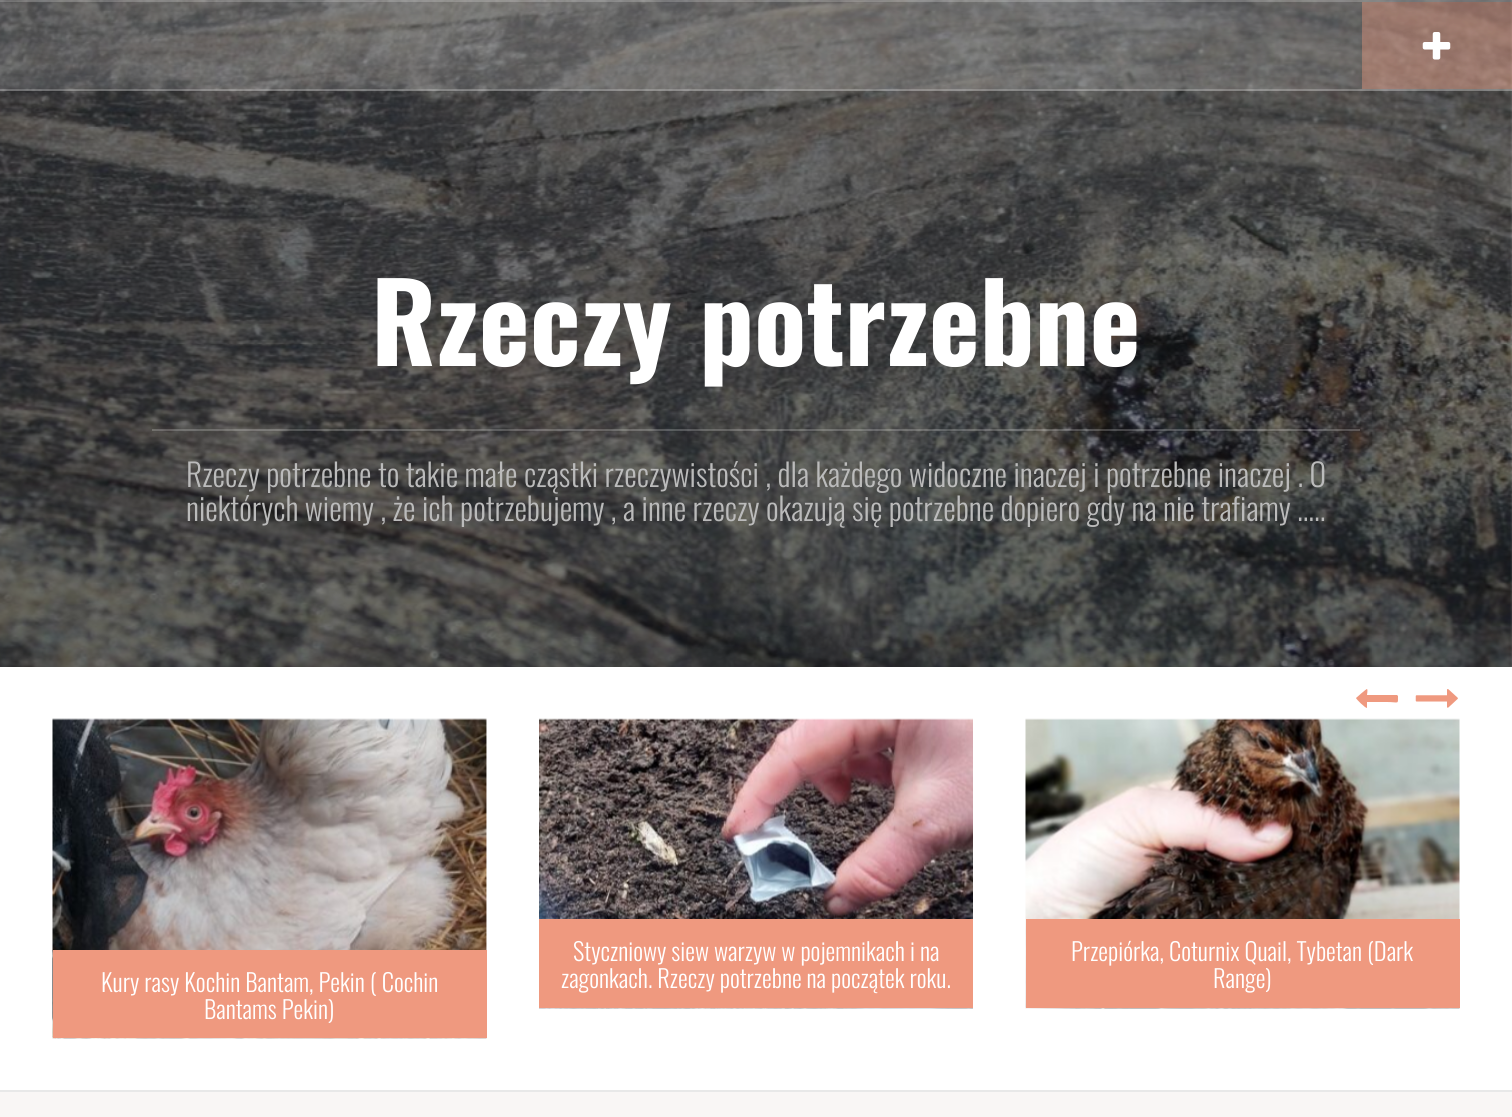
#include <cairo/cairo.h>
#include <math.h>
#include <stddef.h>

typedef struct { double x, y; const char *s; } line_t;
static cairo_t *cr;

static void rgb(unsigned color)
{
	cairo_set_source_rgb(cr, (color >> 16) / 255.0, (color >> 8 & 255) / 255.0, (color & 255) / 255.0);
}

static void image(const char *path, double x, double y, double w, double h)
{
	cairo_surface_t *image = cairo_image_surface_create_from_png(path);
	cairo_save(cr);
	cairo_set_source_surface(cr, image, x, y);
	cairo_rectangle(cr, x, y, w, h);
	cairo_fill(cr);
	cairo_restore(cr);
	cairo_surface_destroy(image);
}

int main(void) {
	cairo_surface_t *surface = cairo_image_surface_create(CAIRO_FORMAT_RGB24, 1512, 1117);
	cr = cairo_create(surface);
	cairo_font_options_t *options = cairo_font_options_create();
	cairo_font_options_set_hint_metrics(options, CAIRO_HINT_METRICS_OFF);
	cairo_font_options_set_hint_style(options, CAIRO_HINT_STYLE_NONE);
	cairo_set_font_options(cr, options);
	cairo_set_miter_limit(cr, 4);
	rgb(0xf9f6f5);
	cairo_paint(cr);
	image("img/1.png", 0, 0, 1512, 667);
	cairo_set_source_rgba(cr, 1, 1, 1, 0.15);
	cairo_rectangle(cr, 0, 0, 1512, 91);
	cairo_fill(cr);
	cairo_set_source_rgba(cr, 1, 1, 1, 0.2);
	cairo_rectangle(cr, 0, 0, 1512, 2);
	cairo_fill(cr);
	cairo_rectangle(cr, 0, 89, 1512, 2);
	cairo_fill(cr);
	cairo_set_source_rgba(cr, 0.937, 0.6, 0.498, 0.4);
	cairo_rectangle(cr, 1362, 2, 150, 87);
	cairo_fill(cr);
	image("img/2.png", 1422, 32, 29, 28);
	cairo_set_source_rgba(cr, 1, 1, 1, 0.2);
	cairo_rectangle(cr, 152, 429, 1208, 2);
	cairo_fill(cr);
	rgb(0xffffff);
	cairo_rectangle(cr, 0, 667, 1512, 423);
	cairo_fill(cr);
	rgb(0xe8e8e8);
	cairo_rectangle(cr, 0, 1090, 1512, 2);
	cairo_fill(cr);
	rgb(0xef997f);
	cairo_new_path(cr);
	cairo_move_to(cr, 1398, 696);
	cairo_curve_to(cr, 1398, 705, 1399, 702, 1387, 702);
	cairo_line_to(cr, 1367, 702);
	cairo_line_to(cr, 1367, 708);
	cairo_curve_to(cr, 1365, 708, 1356, 699, 1356, 698);
	cairo_curve_to(cr, 1356, 698, 1366, 689, 1367, 689);
	cairo_curve_to(cr, 1368, 690, 1367, 694, 1367, 695);
	cairo_line_to(cr, 1397, 695);
	cairo_close_path(cr);
	cairo_fill(cr);
	image("img/3.png", 1415, 689, 43, 19);
	image("img/4.png", 52, 718, 435, 321);
	cairo_rectangle(cr, 53, 950, 434, 88);
	cairo_fill(cr);
	image("img/5.png", 539, 718, 434, 291);
	cairo_rectangle(cr, 539, 919, 434, 89);
	cairo_fill(cr);
	image("img/6.png", 1025, 718, 435, 291);
	cairo_rectangle(cr, 1026, 919, 434, 89);
	cairo_fill(cr);
	cairo_select_font_face(cr, "Oswald", CAIRO_FONT_SLANT_NORMAL, CAIRO_FONT_WEIGHT_BOLD);
	cairo_set_font_size(cr, 108.5);
	rgb(0xffffff);
	cairo_move_to(cr, 371, 366);
	cairo_show_text(cr, "Rzeczy potrzebne");
	cairo_select_font_face(cr, "Oswald Light", CAIRO_FONT_SLANT_NORMAL, CAIRO_FONT_WEIGHT_NORMAL);
	cairo_set_font_size(cr, 31.5);
	rgb(0xbbbbbb);
	cairo_move_to(cr, 186, 487);
	cairo_show_text(cr, "Rzeczy potrzebne to takie małe cząstki rzeczywistości , dla każdego widoczne inaczej i potrzebne inaczej . O");
	cairo_move_to(cr, 186, 521);
	cairo_show_text(cr, "niektórych wiemy , że ich potrzebujemy , a inne rzeczy okazują się potrzebne dopiero gdy na nie trafiamy …..");
	cairo_set_font_size(cr, 24.5);
	rgb(0xffffff);
	{
		static const line_t items[] = {
			{101, 992, "Kury rasy Kochin Bantam, Pekin ( Cochin"},
			{204, 1019, "Bantams Pekin)"},
			{573, 961, "Styczniowy siew warzyw w pojemnikach i na"},
			{561, 988, "zagonkach. Rzeczy potrzebne na początek roku."},
			{1071, 961, "Przepiórka, Coturnix Quail, Tybetan (Dark"},
			{1213, 988, "Range)"},
		};
		for (size_t i = 0; i < sizeof items / sizeof *items; i++) {
			cairo_move_to(cr, items[i].x, items[i].y);
			cairo_show_text(cr, items[i].s);
		}
	}
	cairo_surface_write_to_png(surface, "page.png");
	cairo_font_options_destroy(options);
	cairo_destroy(cr);
	cairo_surface_destroy(surface);
	return 0;
}
